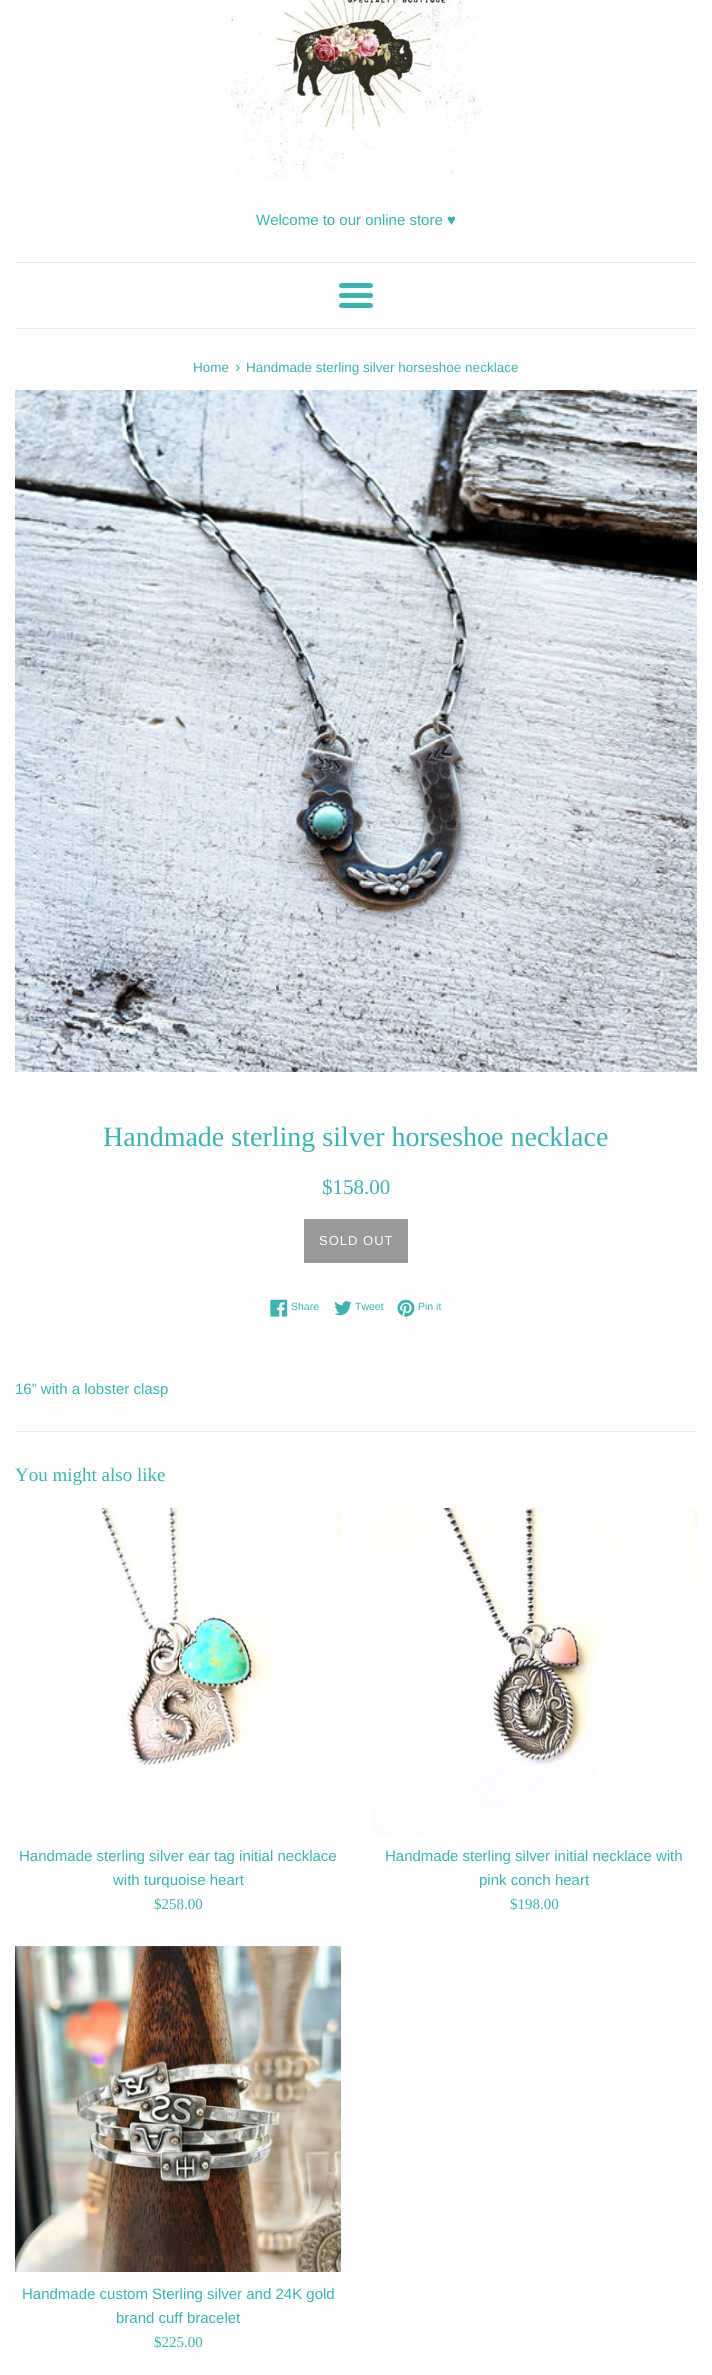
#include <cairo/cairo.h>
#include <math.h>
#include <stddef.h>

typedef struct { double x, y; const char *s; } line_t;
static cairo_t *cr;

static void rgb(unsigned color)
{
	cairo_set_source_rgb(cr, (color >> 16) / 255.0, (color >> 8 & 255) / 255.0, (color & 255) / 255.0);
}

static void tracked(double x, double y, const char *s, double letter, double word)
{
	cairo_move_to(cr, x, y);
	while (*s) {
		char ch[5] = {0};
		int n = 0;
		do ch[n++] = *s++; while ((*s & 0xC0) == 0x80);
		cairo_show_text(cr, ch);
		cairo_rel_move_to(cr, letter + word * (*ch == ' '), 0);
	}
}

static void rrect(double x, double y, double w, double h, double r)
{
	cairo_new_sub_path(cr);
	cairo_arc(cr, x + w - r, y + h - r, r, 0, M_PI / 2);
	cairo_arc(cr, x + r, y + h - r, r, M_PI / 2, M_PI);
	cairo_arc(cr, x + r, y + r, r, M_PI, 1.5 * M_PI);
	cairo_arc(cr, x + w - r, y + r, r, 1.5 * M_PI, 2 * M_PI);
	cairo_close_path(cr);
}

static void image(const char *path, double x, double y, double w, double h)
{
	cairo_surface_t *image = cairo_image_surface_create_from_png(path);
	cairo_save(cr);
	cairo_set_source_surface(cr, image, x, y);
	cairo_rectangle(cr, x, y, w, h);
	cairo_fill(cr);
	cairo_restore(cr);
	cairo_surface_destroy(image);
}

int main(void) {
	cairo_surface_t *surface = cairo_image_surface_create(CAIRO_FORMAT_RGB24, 712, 2375);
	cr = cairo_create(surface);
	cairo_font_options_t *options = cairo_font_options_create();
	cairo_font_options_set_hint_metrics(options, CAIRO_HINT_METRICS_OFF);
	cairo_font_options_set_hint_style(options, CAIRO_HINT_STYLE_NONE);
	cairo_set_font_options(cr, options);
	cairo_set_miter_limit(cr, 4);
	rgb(0xffffff);
	cairo_paint(cr);
	image("img/1.png", 231, 0, 250, 178);
	rgb(0xe8e8e8);
	cairo_rectangle(cr, 15, 262, 682, 1);
	cairo_fill(cr);
	rgb(0x39b4b0);
	rrect(339, 283, 34, 5, 2.5);
	cairo_fill(cr);
	rrect(339, 293, 34, 5, 2.5);
	cairo_fill(cr);
	rrect(339, 303, 34, 5, 2.5);
	cairo_fill(cr);
	rgb(0xe8e8e8);
	cairo_rectangle(cr, 15, 328, 682, 1);
	cairo_fill(cr);
	image("img/2.png", 15, 390, 682, 682);
	rgb(0x999999);
	cairo_rectangle(cr, 304, 1219, 104, 44);
	cairo_fill(cr);
	image("img/3.png", 270, 1299, 18, 18);
	image("img/4.png", 334, 1301, 18, 15);
	image("img/5.png", 397, 1299, 18, 18);
	rgb(0xe8e8e8);
	cairo_rectangle(cr, 15, 1431, 682, 1);
	cairo_fill(cr);
	image("img/6.png", 92, 1508, 249, 318);
	image("img/7.png", 371, 1508, 326, 326);
	image("img/8.png", 15, 1946, 326, 326);
	cairo_select_font_face(cr, "Liberation Sans", CAIRO_FONT_SLANT_NORMAL, CAIRO_FONT_WEIGHT_NORMAL);
	cairo_set_font_size(cr, 15);
	rgb(0x39b4b0);
	cairo_move_to(cr, 256, 225);
	cairo_show_text(cr, "Welcome to our online store ♥");
	cairo_set_font_size(cr, 13.5);
	cairo_move_to(cr, 193, 372);
	cairo_show_text(cr, "Home");
	cairo_set_font_size(cr, 16);
	cairo_move_to(cr, 235, 372);
	cairo_show_text(cr, "›");
	cairo_set_font_size(cr, 13.5);
	cairo_move_to(cr, 246, 372);
	cairo_show_text(cr, "Handmade sterling silver horseshoe necklace");
	cairo_select_font_face(cr, "Liberation Serif", CAIRO_FONT_SLANT_NORMAL, CAIRO_FONT_WEIGHT_NORMAL);
	cairo_set_font_size(cr, 28);
	cairo_move_to(cr, 103, 1146);
	cairo_show_text(cr, "Handmade sterling silver horseshoe necklace");
	cairo_set_font_size(cr, 21);
	cairo_move_to(cr, 322, 1194);
	cairo_show_text(cr, "$158.00");
	cairo_select_font_face(cr, "Liberation Sans", CAIRO_FONT_SLANT_NORMAL, CAIRO_FONT_WEIGHT_NORMAL);
	cairo_set_font_size(cr, 13);
	rgb(0xffffff);
	tracked(319, 1245, "SOLD OUT", 1, 0);
	cairo_set_font_size(cr, 10.5);
	rgb(0x39b4b0);
	{
		static const line_t items[] = {
			{291, 1310, "Share"},
			{355, 1310, "Tweet"},
			{418, 1310, "Pin it"},
		};
		for (size_t i = 0; i < sizeof items / sizeof *items; i++) {
			cairo_move_to(cr, items[i].x, items[i].y);
			cairo_show_text(cr, items[i].s);
		}
	}
	cairo_set_font_size(cr, 15);
	cairo_move_to(cr, 15, 1394);
	cairo_show_text(cr, "16” with a lobster clasp");
	cairo_select_font_face(cr, "Liberation Serif", CAIRO_FONT_SLANT_NORMAL, CAIRO_FONT_WEIGHT_NORMAL);
	cairo_set_font_size(cr, 19);
	cairo_move_to(cr, 15, 1481);
	cairo_show_text(cr, "You might also like");
	cairo_select_font_face(cr, "Liberation Sans", CAIRO_FONT_SLANT_NORMAL, CAIRO_FONT_WEIGHT_NORMAL);
	cairo_set_font_size(cr, 15);
	cairo_move_to(cr, 19, 1861);
	cairo_show_text(cr, "Handmade sterling silver ear tag initial necklace");
	cairo_move_to(cr, 113, 1885);
	cairo_show_text(cr, "with turquoise heart");
	cairo_select_font_face(cr, "Liberation Serif", CAIRO_FONT_SLANT_NORMAL, CAIRO_FONT_WEIGHT_NORMAL);
	cairo_move_to(cr, 154, 1909);
	cairo_show_text(cr, "$258.00");
	cairo_select_font_face(cr, "Liberation Sans", CAIRO_FONT_SLANT_NORMAL, CAIRO_FONT_WEIGHT_NORMAL);
	cairo_move_to(cr, 385, 1861);
	cairo_show_text(cr, "Handmade sterling silver initial necklace with");
	cairo_move_to(cr, 479, 1885);
	cairo_show_text(cr, "pink conch heart");
	cairo_select_font_face(cr, "Liberation Serif", CAIRO_FONT_SLANT_NORMAL, CAIRO_FONT_WEIGHT_NORMAL);
	cairo_move_to(cr, 510, 1909);
	cairo_show_text(cr, "$198.00");
	cairo_select_font_face(cr, "Liberation Sans", CAIRO_FONT_SLANT_NORMAL, CAIRO_FONT_WEIGHT_NORMAL);
	cairo_move_to(cr, 22, 2299);
	cairo_show_text(cr, "Handmade custom Sterling silver and 24K gold");
	cairo_move_to(cr, 116, 2323);
	cairo_show_text(cr, "brand cuff bracelet");
	cairo_select_font_face(cr, "Liberation Serif", CAIRO_FONT_SLANT_NORMAL, CAIRO_FONT_WEIGHT_NORMAL);
	cairo_move_to(cr, 154, 2347);
	cairo_show_text(cr, "$225.00");
	cairo_surface_write_to_png(surface, "page.png");
	cairo_font_options_destroy(options);
	cairo_destroy(cr);
	cairo_surface_destroy(surface);
	return 0;
}
